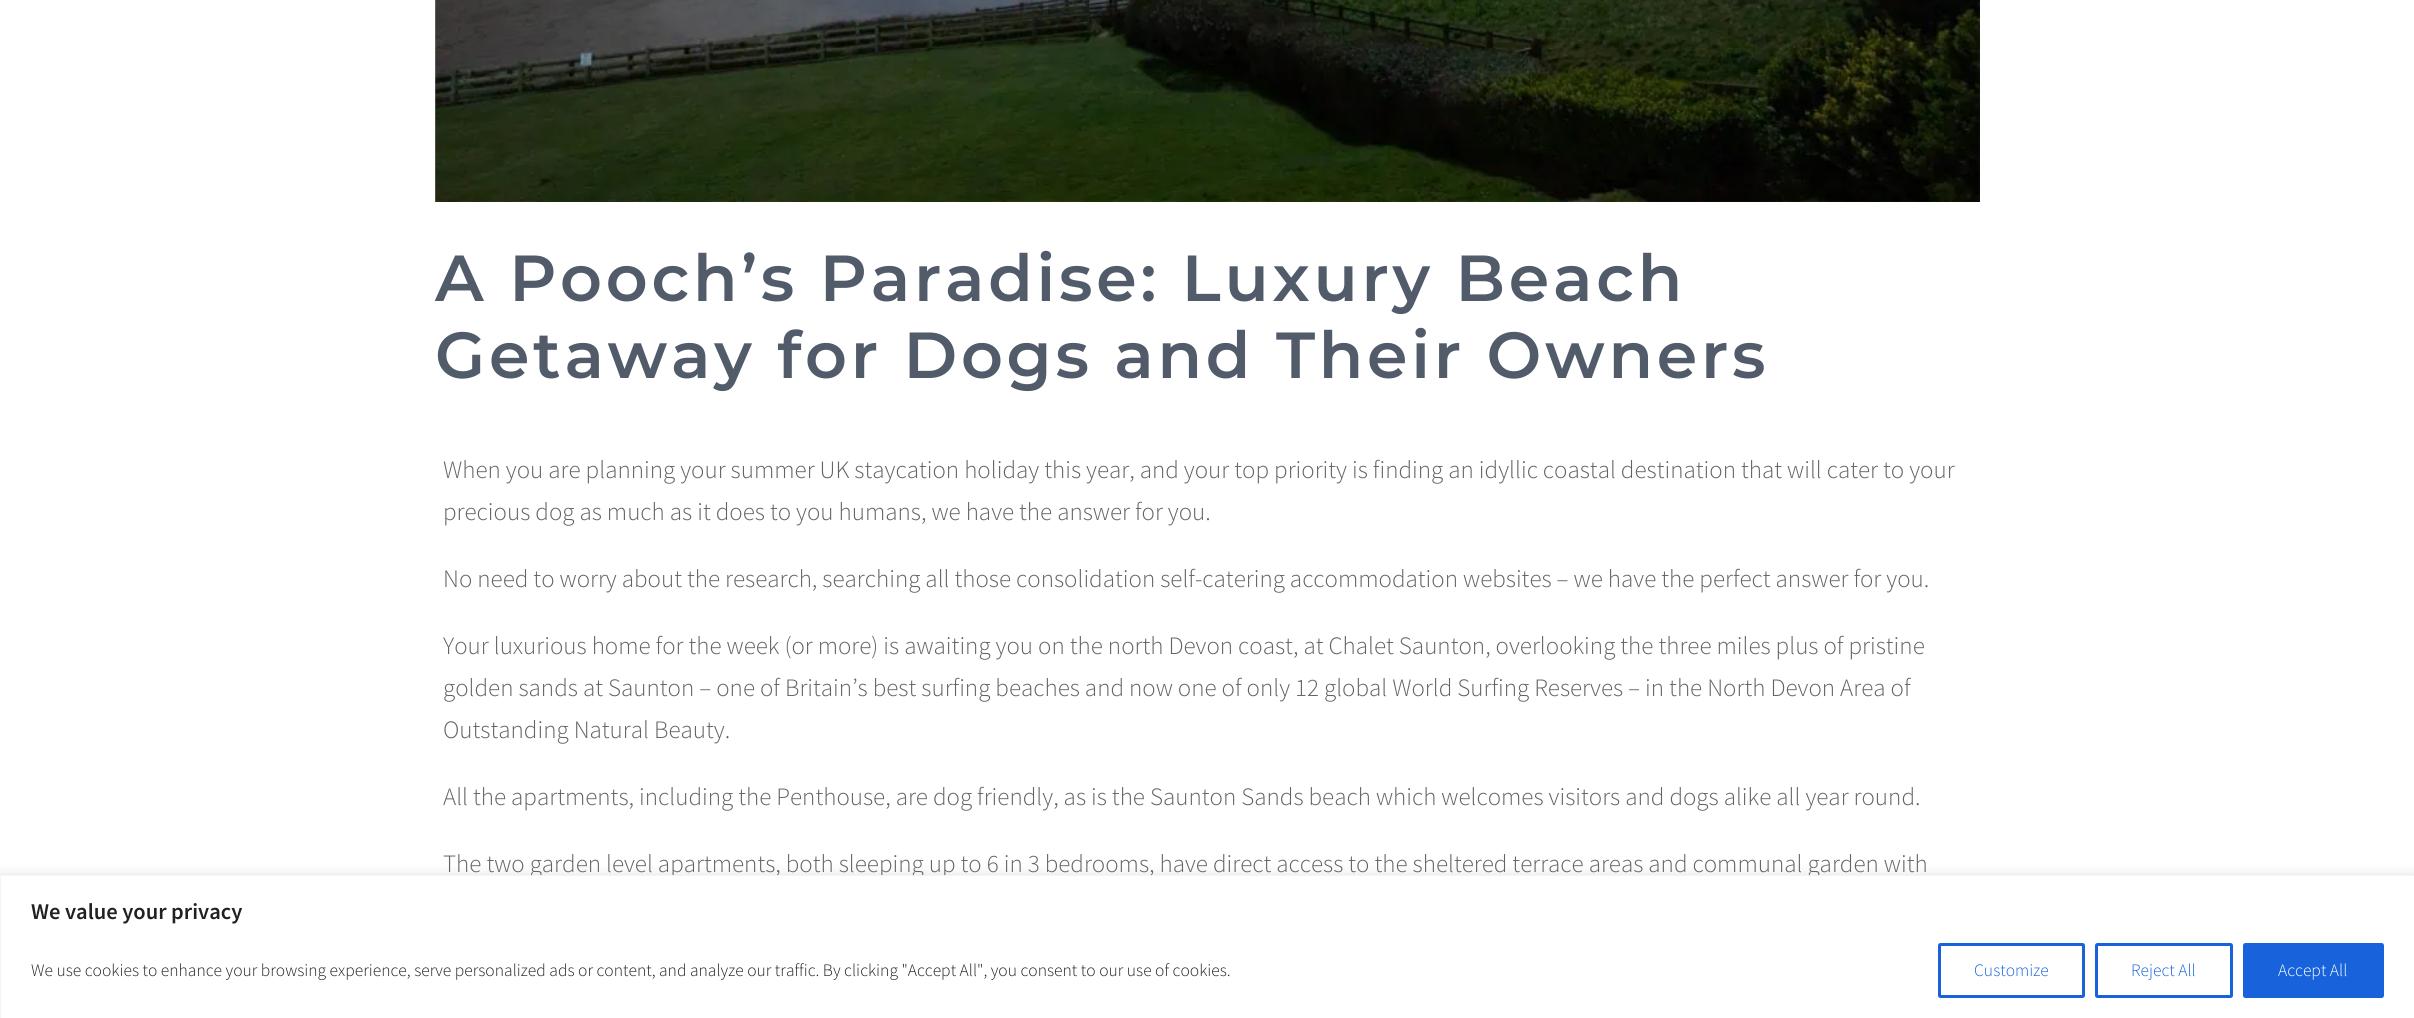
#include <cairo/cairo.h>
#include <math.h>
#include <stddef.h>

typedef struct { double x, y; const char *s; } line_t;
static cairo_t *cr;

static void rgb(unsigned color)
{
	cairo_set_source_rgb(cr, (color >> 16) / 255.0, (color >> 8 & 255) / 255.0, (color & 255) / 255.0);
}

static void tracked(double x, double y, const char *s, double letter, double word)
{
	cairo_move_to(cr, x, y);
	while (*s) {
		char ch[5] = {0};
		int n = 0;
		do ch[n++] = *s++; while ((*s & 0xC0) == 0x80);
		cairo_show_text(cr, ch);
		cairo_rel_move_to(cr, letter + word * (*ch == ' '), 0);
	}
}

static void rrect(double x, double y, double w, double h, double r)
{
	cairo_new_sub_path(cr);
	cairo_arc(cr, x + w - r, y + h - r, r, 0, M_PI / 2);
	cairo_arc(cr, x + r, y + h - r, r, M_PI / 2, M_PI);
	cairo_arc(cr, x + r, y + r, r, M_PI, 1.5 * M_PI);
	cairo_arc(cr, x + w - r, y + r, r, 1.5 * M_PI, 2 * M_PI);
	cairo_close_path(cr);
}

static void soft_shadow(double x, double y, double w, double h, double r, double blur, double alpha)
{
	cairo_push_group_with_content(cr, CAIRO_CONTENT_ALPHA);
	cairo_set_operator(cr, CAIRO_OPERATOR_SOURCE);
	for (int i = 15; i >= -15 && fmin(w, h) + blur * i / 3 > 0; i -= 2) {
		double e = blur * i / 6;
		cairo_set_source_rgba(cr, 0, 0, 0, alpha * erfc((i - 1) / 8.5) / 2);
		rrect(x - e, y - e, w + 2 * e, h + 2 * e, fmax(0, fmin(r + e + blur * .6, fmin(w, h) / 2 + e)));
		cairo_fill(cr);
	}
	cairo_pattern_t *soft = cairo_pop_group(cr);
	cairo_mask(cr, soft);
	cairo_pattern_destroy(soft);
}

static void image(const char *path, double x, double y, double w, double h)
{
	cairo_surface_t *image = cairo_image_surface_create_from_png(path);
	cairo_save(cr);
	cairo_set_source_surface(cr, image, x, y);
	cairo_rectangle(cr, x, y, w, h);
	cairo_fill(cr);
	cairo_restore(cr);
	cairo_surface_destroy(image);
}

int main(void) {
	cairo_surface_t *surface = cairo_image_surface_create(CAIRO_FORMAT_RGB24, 2414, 1018);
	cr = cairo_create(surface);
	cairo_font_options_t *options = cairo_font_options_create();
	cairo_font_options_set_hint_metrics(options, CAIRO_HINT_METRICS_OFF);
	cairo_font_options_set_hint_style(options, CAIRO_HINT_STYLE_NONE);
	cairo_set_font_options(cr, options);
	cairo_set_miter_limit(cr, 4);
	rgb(0xffffff);
	cairo_paint(cr);
	image("img/1.png", 435, 0, 1545, 202);
	rgb(0xacabab);
	soft_shadow(0, 874, 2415, 144, 0, 6, 0.3);
	cairo_select_font_face(cr, "Montserrat SemiBold", CAIRO_FONT_SLANT_NORMAL, CAIRO_FONT_WEIGHT_NORMAL);
	cairo_set_font_size(cr, 65);
	rgb(0x515b69);
	tracked(435, 301, "A Pooch’s Paradise: Luxury Beach", 3.75, 0);
	tracked(435, 378, "Getaway for Dogs and Their Owners", 3.75, 0);
	cairo_select_font_face(cr, "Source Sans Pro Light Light", CAIRO_FONT_SLANT_NORMAL, CAIRO_FONT_WEIGHT_NORMAL);
	cairo_set_font_size(cr, 25);
	rgb(0x636363);
	{
		static const line_t items[] = {
			{443, 478, "When you are planning your summer UK staycation holiday this year, and your top priority is finding an idyllic coastal destination that will cater to your"},
			{443, 520, "precious dog as much as it does to you humans, we have the answer for you."},
			{443, 587, "No need to worry about the research, searching all those consolidation self-catering accommodation websites – we have the perfect answer for you."},
			{443, 654, "Your luxurious home for the week (or more) is awaiting you on the north Devon coast, at Chalet Saunton, overlooking the three miles plus of pristine"},
			{443, 696, "golden sands at Saunton – one of Britain’s best surfing beaches and now one of only 12 global World Surfing Reserves – in the North Devon Area of"},
			{443, 738, "Outstanding Natural Beauty."},
			{443, 805, "All the apartments, including the Penthouse, are dog friendly, as is the Saunton Sands beach which welcomes visitors and dogs alike all year round."},
			{443, 872, "The two garden level apartments, both sleeping up to 6 in 3 bedrooms, have direct access to the sheltered terrace areas and communal garden with"},
		};
		for (size_t i = 0; i < sizeof items / sizeof *items; i++) {
			cairo_move_to(cr, items[i].x, items[i].y);
			cairo_show_text(cr, items[i].s);
		}
	}
	rgb(0xffffff);
	cairo_rectangle(cr, 0.5, 875.5, 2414, 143);
	cairo_fill_preserve(cr);
	rgb(0xf4f4f4);
	cairo_set_line_width(cr, 1);
	cairo_stroke(cr);
	cairo_select_font_face(cr, "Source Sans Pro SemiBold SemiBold", CAIRO_FONT_SLANT_NORMAL, CAIRO_FONT_WEIGHT_NORMAL);
	cairo_set_font_size(cr, 22.5);
	rgb(0x212121);
	cairo_move_to(cr, 31, 919);
	cairo_show_text(cr, "We value your privacy");
	cairo_select_font_face(cr, "Source Sans Pro Light Light", CAIRO_FONT_SLANT_NORMAL, CAIRO_FONT_WEIGHT_NORMAL);
	cairo_set_font_size(cr, 17.5);
	cairo_move_to(cr, 31, 976);
	cairo_show_text(cr, "We use cookies to enhance your browsing experience, serve personalized ads or content, and analyze our traffic. By clicking \"Accept All\", you consent to our use of cookies.");
	rrect(1939.5, 944.5, 144, 52, 1);
	rgb(0x1863dc);
	cairo_set_line_width(cr, 3);
	cairo_stroke(cr);
	cairo_move_to(cr, 1974, 976);
	cairo_show_text(cr, "Customize");
	rrect(2096.5, 944.5, 135, 52, 1);
	cairo_stroke(cr);
	cairo_move_to(cr, 2131, 976);
	cairo_show_text(cr, "Reject All");
	rrect(2244.5, 944.5, 138, 52, 1);
	cairo_fill_preserve(cr);
	cairo_stroke(cr);
	rgb(0xffffff);
	cairo_move_to(cr, 2278, 976);
	cairo_show_text(cr, "Accept All");
	cairo_surface_write_to_png(surface, "page.png");
	cairo_font_options_destroy(options);
	cairo_destroy(cr);
	cairo_surface_destroy(surface);
	return 0;
}
